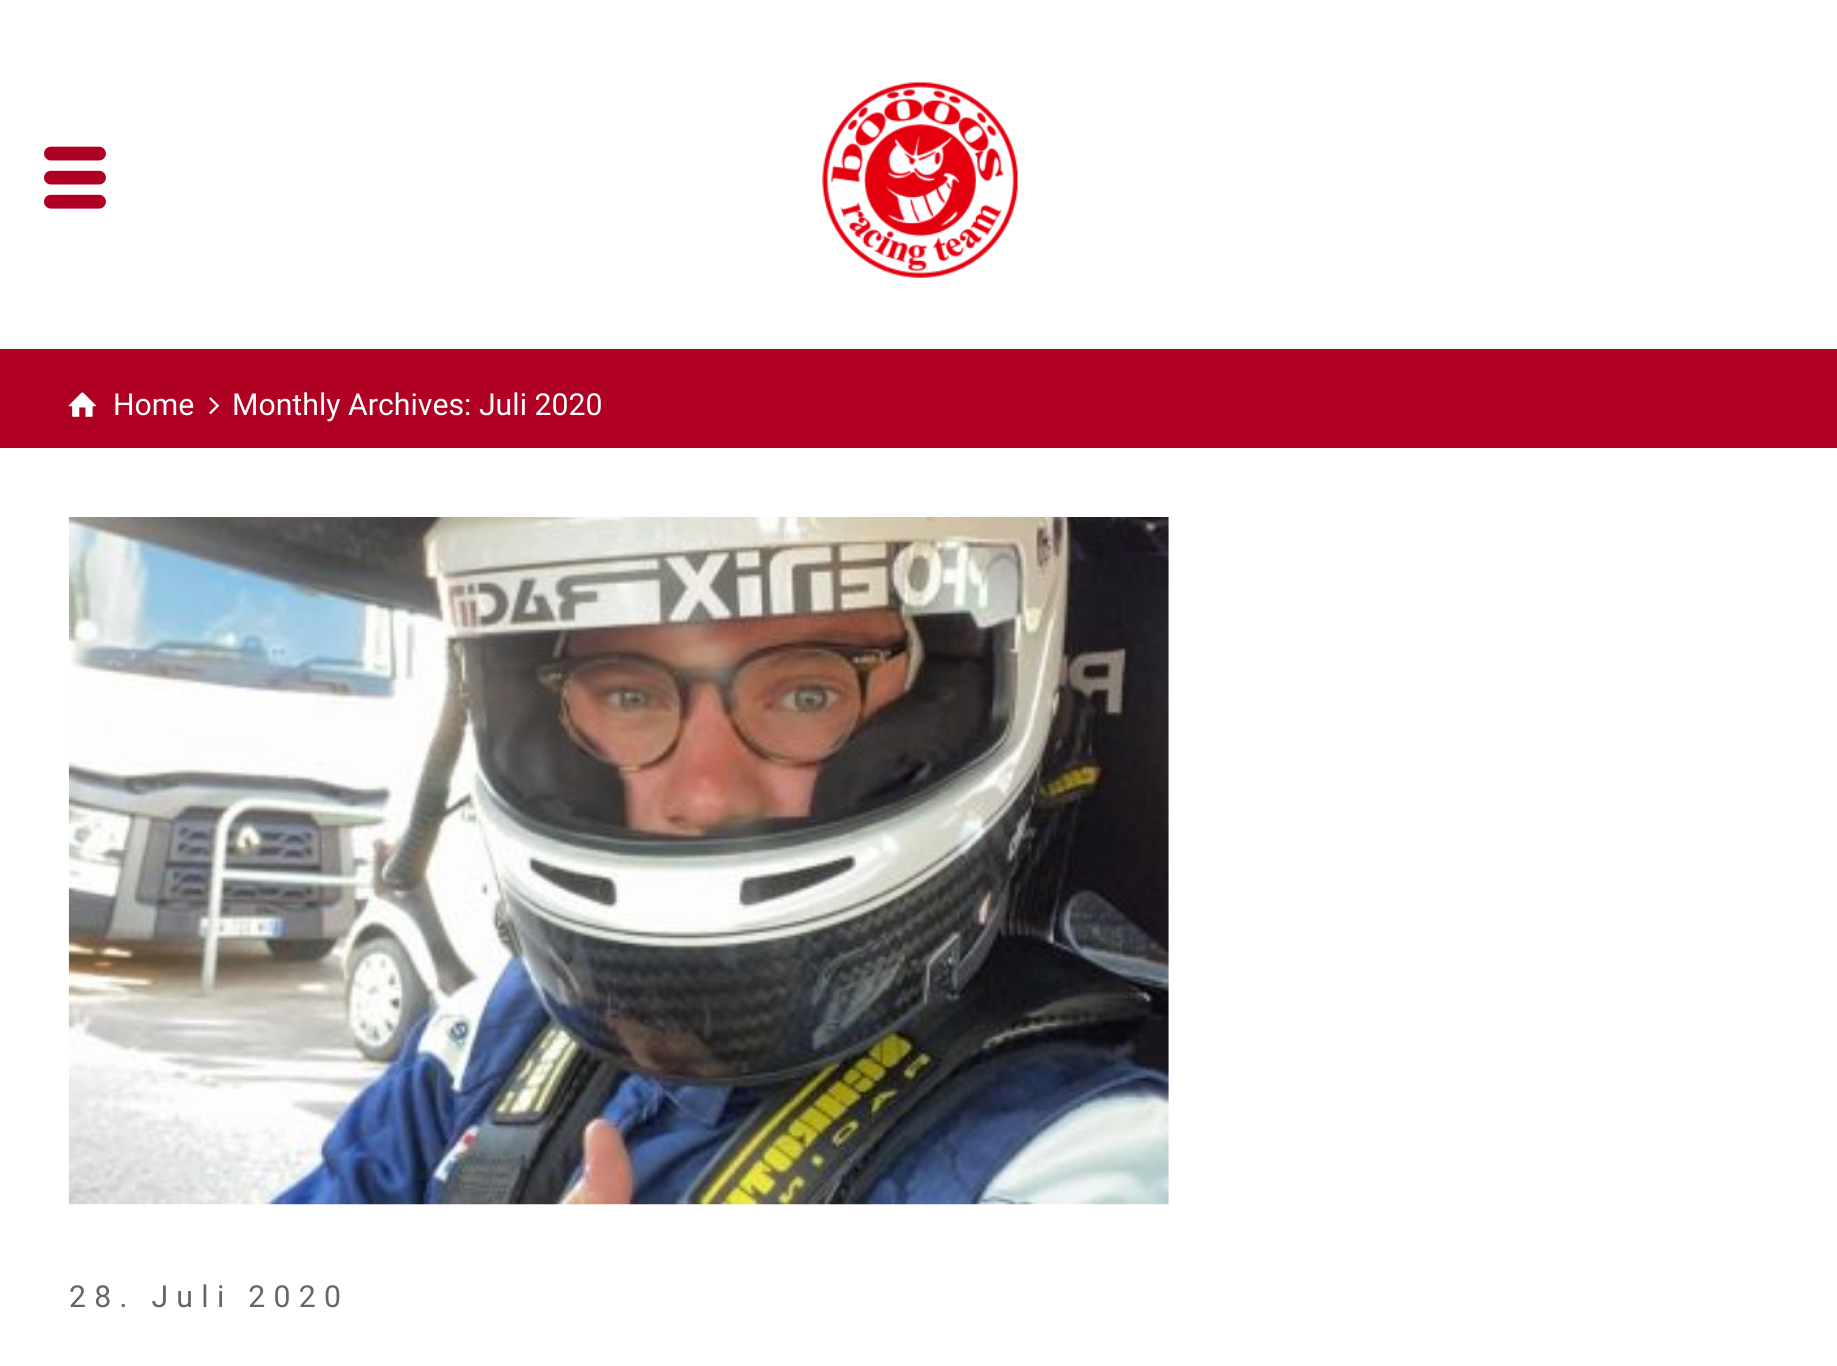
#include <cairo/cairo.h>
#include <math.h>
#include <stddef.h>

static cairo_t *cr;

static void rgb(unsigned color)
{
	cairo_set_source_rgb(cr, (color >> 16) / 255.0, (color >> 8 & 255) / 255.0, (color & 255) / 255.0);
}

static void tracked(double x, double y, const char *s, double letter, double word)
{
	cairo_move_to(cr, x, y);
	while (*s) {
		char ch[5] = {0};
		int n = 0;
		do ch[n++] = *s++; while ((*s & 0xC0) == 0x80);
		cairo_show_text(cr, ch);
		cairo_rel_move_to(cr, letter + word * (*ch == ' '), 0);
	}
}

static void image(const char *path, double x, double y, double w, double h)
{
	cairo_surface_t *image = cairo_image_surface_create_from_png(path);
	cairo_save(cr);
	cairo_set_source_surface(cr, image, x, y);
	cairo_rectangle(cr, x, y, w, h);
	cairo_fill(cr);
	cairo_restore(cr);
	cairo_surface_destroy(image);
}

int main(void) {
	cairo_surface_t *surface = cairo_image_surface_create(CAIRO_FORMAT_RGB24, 1837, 1366);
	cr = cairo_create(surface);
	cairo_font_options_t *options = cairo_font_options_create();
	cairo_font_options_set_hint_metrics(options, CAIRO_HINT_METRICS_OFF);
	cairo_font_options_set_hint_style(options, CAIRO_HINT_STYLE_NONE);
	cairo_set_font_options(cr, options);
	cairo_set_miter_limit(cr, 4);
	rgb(0xffffff);
	cairo_paint(cr);
	image("img/1.png", 44, 146, 62, 63);
	image("img/2.png", 822, 82, 196, 196);
	rgb(0xb00023);
	cairo_rectangle(cr, 0, 349, 1837, 99);
	cairo_fill(cr);
	image("img/3.png", 68, 392, 28, 25);
	image("img/4.png", 209, 397, 10, 18);
	image("img/5.png", 68, 517, 1101, 688);
	cairo_select_font_face(cr, "Roboto", CAIRO_FONT_SLANT_NORMAL, CAIRO_FONT_WEIGHT_NORMAL);
	cairo_set_font_size(cr, 30.25);
	rgb(0xffffff);
	cairo_move_to(cr, 113, 415);
	cairo_show_text(cr, "Home");
	cairo_move_to(cr, 232, 415);
	cairo_show_text(cr, "Monthly Archives: Juli 2020");
	rgb(0x666666);
	tracked(69, 1307, "28. Juli 2020", 8.25, 0);
	cairo_surface_write_to_png(surface, "page.png");
	cairo_font_options_destroy(options);
	cairo_destroy(cr);
	cairo_surface_destroy(surface);
	return 0;
}
